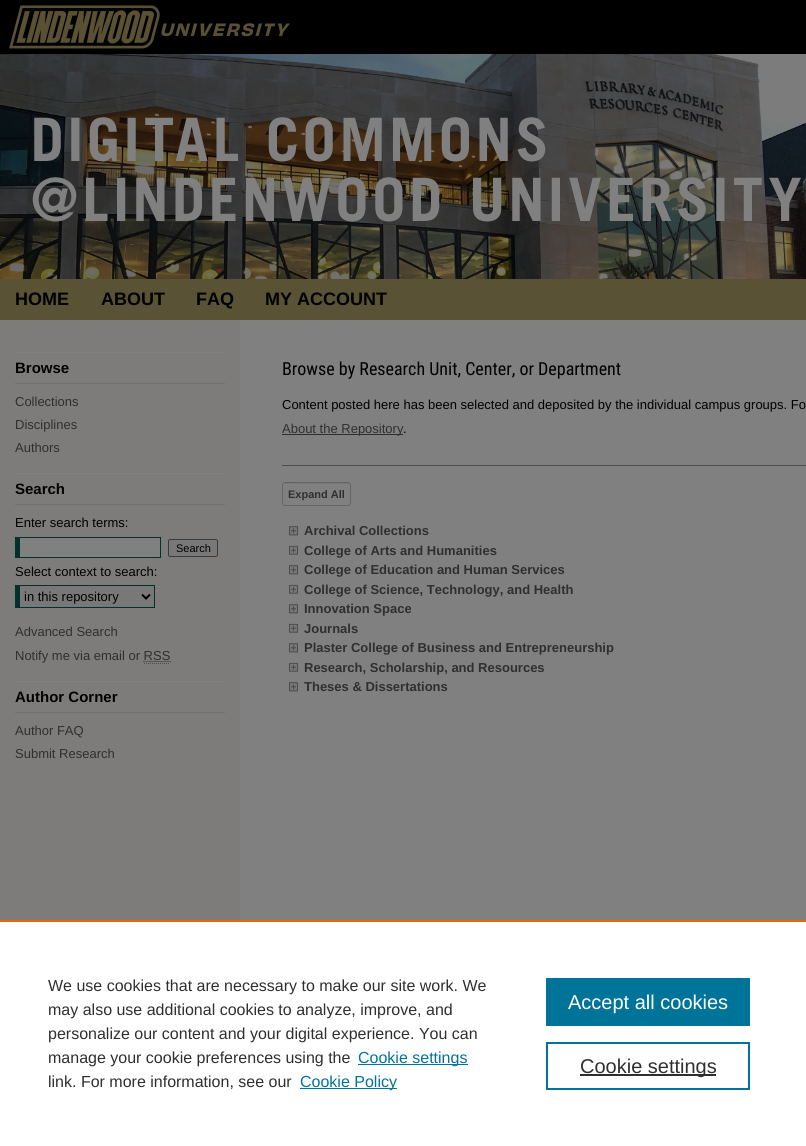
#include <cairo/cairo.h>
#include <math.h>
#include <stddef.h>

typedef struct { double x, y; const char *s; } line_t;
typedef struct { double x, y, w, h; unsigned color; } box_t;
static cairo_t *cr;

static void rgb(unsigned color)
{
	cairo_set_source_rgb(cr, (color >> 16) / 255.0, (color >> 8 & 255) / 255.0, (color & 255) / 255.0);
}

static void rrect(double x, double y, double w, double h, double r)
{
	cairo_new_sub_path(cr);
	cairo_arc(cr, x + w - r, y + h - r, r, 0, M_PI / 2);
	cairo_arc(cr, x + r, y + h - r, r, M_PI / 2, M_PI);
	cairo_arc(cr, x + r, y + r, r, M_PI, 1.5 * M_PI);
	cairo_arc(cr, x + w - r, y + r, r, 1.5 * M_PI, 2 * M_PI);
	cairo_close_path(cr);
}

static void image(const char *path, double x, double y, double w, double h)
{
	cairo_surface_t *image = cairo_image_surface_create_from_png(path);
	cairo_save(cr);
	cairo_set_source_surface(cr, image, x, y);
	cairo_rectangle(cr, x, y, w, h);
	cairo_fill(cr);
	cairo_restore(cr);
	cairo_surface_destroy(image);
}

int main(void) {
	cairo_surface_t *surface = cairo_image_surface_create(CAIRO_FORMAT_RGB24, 806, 1146);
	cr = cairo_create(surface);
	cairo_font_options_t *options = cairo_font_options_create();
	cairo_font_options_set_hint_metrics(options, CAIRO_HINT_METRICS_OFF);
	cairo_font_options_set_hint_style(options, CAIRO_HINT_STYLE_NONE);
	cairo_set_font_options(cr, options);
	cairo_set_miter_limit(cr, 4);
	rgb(0xffffff);
	cairo_paint(cr);
	image("img/1.png", 0, 279, 806, 641);
	image("img/2.png", 0, 0, 806, 279);
	image("img/3.png", 9, 5, 395, 44);
	{
		static const box_t items[] = {
			{240, 320, 163, 600, 0x808080},
			{15, 352, 210, 1, 0x808080},
			{15, 383, 210, 1, 0x72716b},
			{15, 473, 210, 1, 0x808080},
			{15, 504, 210, 1, 0x72716b},
			{20, 538, 140, 19, 0x808080},
			{15, 537, 146, 1, 0x02302b},
			{160, 537, 1, 21, 0x02302b},
			{15, 557, 146, 1, 0x02302b},
			{15, 537, 5, 21, 0x02302b},
		};
		for (size_t i = 0; i < sizeof items / sizeof *items; i++) {
			rgb(items[i].color);
			cairo_rectangle(cr, items[i].x, items[i].y, items[i].w, items[i].h);
			cairo_fill(cr);
		}
	}
	rgb(0x787878);
	rrect(168.5, 539.5, 49, 17, 1.5);
	cairo_fill_preserve(cr);
	rgb(0x3b3b3b);
	cairo_set_line_width(cr, 1);
	cairo_stroke(cr);
	{
		static const box_t items[] = {
			{20, 586, 134, 21, 0x787878},
			{15, 585, 140, 1, 0x02302b},
			{154, 585, 1, 23, 0x02302b},
			{15, 607, 140, 1, 0x02302b},
			{15, 585, 5, 23, 0x02302b},
		};
		for (size_t i = 0; i < sizeof items / sizeof *items; i++) {
			rgb(items[i].color);
			cairo_rectangle(cr, items[i].x, items[i].y, items[i].w, items[i].h);
			cairo_fill(cr);
		}
	}
	cairo_new_path(cr);
	cairo_move_to(cr, 142, 594.5);
	cairo_line_to(cr, 146, 598.5);
	cairo_line_to(cr, 150, 594.5);
	rgb(0x000000);
	cairo_set_line_width(cr, 2);
	cairo_stroke(cr);
	cairo_new_path(cr);
	cairo_move_to(cr, 143.5, 661.5);
	cairo_line_to(cr, 170.5, 661.5);
	rgb(0x2f2f2f);
	cairo_set_line_width(cr, 1);
	cairo_set_dash(cr, (double[]){1, 1}, 2, 0);
	cairo_stroke(cr);
	cairo_new_path(cr);
	cairo_move_to(cr, 144, 663.5);
	cairo_line_to(cr, 170, 663.5);
	rgb(0x4d4d4d);
	cairo_stroke(cr);
	{
		static const box_t items[] = {
			{15, 681, 210, 1, 0x808080},
			{15, 712, 210, 1, 0x72716b},
			{282, 434, 121, 1, 0x2f2f2f},
			{282, 465, 524, 1, 0x4d4d4d},
		};
		for (size_t i = 0; i < sizeof items / sizeof *items; i++) {
			rgb(items[i].color);
			cairo_rectangle(cr, items[i].x, items[i].y, items[i].w, items[i].h);
			cairo_fill(cr);
		}
	}
	rgb(0x787878);
	cairo_new_path(cr);
	cairo_move_to(cr, 285, 484);
	cairo_line_to(cr, 349, 484);
	cairo_line_to(cr, 350, 486);
	cairo_curve_to(cr, 350, 480, 341, 483, 338, 483);
	cairo_line_to(cr, 296, 483);
	cairo_curve_to(cr, 292, 483, 283, 480, 283, 486);
	cairo_curve_to(cr, 283, 485, 284, 484, 285, 484);
	cairo_close_path(cr);
	cairo_fill(cr);
	rrect(282.5, 482.5, 68, 23, 2.5);
	cairo_set_source_rgba(cr, 0, 0, 0, 0.2);
	cairo_set_dash(cr, NULL, 0, 0);
	cairo_stroke(cr);
	image("img/4.png", 289, 526, 9, 10);
	image("img/5.png", 289, 545, 9, 10);
	image("img/4.png", 289, 565, 9, 10);
	image("img/5.png", 289, 584, 9, 10);
	image("img/4.png", 289, 604, 9, 10);
	image("img/5.png", 289, 623, 9, 10);
	image("img/4.png", 289, 643, 9, 10);
	image("img/5.png", 289, 662, 9, 10);
	image("img/4.png", 289, 682, 9, 10);
	{
		static const box_t items[] = {
			{0, 920, 806, 2, 0xeb6500},
			{358, 1064, 110, 1, 0x007398},
			{300, 1088, 97, 1, 0x007398},
			{546, 978, 204, 48, 0x007398},
		};
		for (size_t i = 0; i < sizeof items / sizeof *items; i++) {
			rgb(items[i].color);
			cairo_rectangle(cr, items[i].x, items[i].y, items[i].w, items[i].h);
			cairo_fill(cr);
		}
	}
	cairo_rectangle(cr, 547, 1043, 202, 46);
	cairo_set_line_width(cr, 2);
	cairo_stroke(cr);
	rgb(0x2e2e2e);
	cairo_rectangle(cr, 580, 1074, 136, 2);
	cairo_fill(cr);
	cairo_select_font_face(cr, "Liberation Sans", CAIRO_FONT_SLANT_NORMAL, CAIRO_FONT_WEIGHT_BOLD);
	cairo_set_font_size(cr, 18);
	rgb(0x000000);
	{
		static const line_t items[] = {
			{15, 305, "HOME"},
			{101, 305, "ABOUT"},
			{196, 305, "FAQ"},
			{265, 305, "MY ACCOUNT"},
		};
		for (size_t i = 0; i < sizeof items / sizeof *items; i++) {
			cairo_move_to(cr, items[i].x, items[i].y);
			cairo_show_text(cr, items[i].s);
		}
	}
	cairo_set_font_size(cr, 15);
	cairo_move_to(cr, 15, 373);
	cairo_show_text(cr, "Browse");
	cairo_select_font_face(cr, "Liberation Sans", CAIRO_FONT_SLANT_NORMAL, CAIRO_FONT_WEIGHT_NORMAL);
	cairo_set_font_size(cr, 13);
	rgb(0x2f2f2f);
	{
		static const line_t items[] = {
			{15, 406, "Collections"},
			{15, 429, "Disciplines"},
			{15, 452, "Authors"},
		};
		for (size_t i = 0; i < sizeof items / sizeof *items; i++) {
			cairo_move_to(cr, items[i].x, items[i].y);
			cairo_show_text(cr, items[i].s);
		}
	}
	cairo_select_font_face(cr, "Liberation Sans", CAIRO_FONT_SLANT_NORMAL, CAIRO_FONT_WEIGHT_BOLD);
	cairo_set_font_size(cr, 15);
	rgb(0x000000);
	cairo_move_to(cr, 15, 494);
	cairo_show_text(cr, "Search");
	cairo_select_font_face(cr, "Liberation Sans", CAIRO_FONT_SLANT_NORMAL, CAIRO_FONT_WEIGHT_NORMAL);
	cairo_set_font_size(cr, 13);
	cairo_move_to(cr, 15, 527);
	cairo_show_text(cr, "Enter search terms:");
	cairo_set_font_size(cr, 11);
	cairo_move_to(cr, 176, 552);
	cairo_show_text(cr, "Search");
	cairo_set_font_size(cr, 13);
	cairo_move_to(cr, 15, 576);
	cairo_show_text(cr, "Select context to search:");
	cairo_move_to(cr, 24, 601);
	cairo_show_text(cr, "in this repository");
	rgb(0x2f2f2f);
	cairo_move_to(cr, 15, 636);
	cairo_show_text(cr, "Advanced Search");
	cairo_move_to(cr, 15, 660);
	cairo_show_text(cr, "Notify me via email or RSS");
	cairo_select_font_face(cr, "Liberation Sans", CAIRO_FONT_SLANT_NORMAL, CAIRO_FONT_WEIGHT_BOLD);
	cairo_set_font_size(cr, 15);
	rgb(0x000000);
	cairo_move_to(cr, 15, 702);
	cairo_show_text(cr, "Author Corner");
	cairo_select_font_face(cr, "Liberation Sans", CAIRO_FONT_SLANT_NORMAL, CAIRO_FONT_WEIGHT_NORMAL);
	cairo_set_font_size(cr, 13);
	rgb(0x2f2f2f);
	cairo_move_to(cr, 15, 735);
	cairo_show_text(cr, "Author FAQ");
	cairo_move_to(cr, 15, 758);
	cairo_show_text(cr, "Submit Research");
	cairo_select_font_face(cr, "Roboto Condensed", CAIRO_FONT_SLANT_NORMAL, CAIRO_FONT_WEIGHT_NORMAL);
	cairo_set_font_size(cr, 18);
	rgb(0x000000);
	cairo_move_to(cr, 282, 375);
	cairo_show_text(cr, "Browse by Research Unit, Center, or Department");
	cairo_select_font_face(cr, "Liberation Sans", CAIRO_FONT_SLANT_NORMAL, CAIRO_FONT_WEIGHT_NORMAL);
	cairo_set_font_size(cr, 13);
	cairo_move_to(cr, 282, 409);
	cairo_show_text(cr, "Content posted here has been selected and deposited by the individual campus groups. Fo");
	rgb(0x2f2f2f);
	cairo_move_to(cr, 282, 433);
	cairo_show_text(cr, "About the Repository");
	rgb(0x000000);
	cairo_move_to(cr, 403, 433);
	cairo_show_text(cr, ".");
	cairo_select_font_face(cr, "Liberation Sans", CAIRO_FONT_SLANT_NORMAL, CAIRO_FONT_WEIGHT_BOLD);
	cairo_set_font_size(cr, 11);
	rgb(0x2f2f2f);
	cairo_move_to(cr, 288, 498);
	cairo_show_text(cr, "Expand All");
	cairo_set_font_size(cr, 13);
	{
		static const line_t items[] = {
			{304, 535, "Archival Collections"},
			{304, 555, "College of Arts and Humanities"},
			{304, 574, "College of Education and Human Services"},
			{304, 594, "College of Science, Technology, and Health"},
			{304, 613, "Innovation Space"},
			{304, 633, "Journals"},
			{304, 652, "Plaster College of Business and Entrepreneurship"},
			{304, 672, "Research, Scholarship, and Resources"},
			{304, 691, "Theses & Dissertations"},
		};
		for (size_t i = 0; i < sizeof items / sizeof *items; i++) {
			cairo_move_to(cr, items[i].x, items[i].y);
			cairo_show_text(cr, items[i].s);
		}
	}
	cairo_select_font_face(cr, "Liberation Sans", CAIRO_FONT_SLANT_NORMAL, CAIRO_FONT_WEIGHT_NORMAL);
	cairo_set_font_size(cr, 16);
	{
		static const line_t items[] = {
			{48, 991, "We use cookies that are necessary to make our site work. We"},
			{48, 1015, "may also use additional cookies to analyze, improve, and"},
			{48, 1039, "personalize our content and your digital experience. You can"},
			{48, 1063, "manage your cookie preferences using the"},
		};
		for (size_t i = 0; i < sizeof items / sizeof *items; i++) {
			cairo_move_to(cr, items[i].x, items[i].y);
			cairo_show_text(cr, items[i].s);
		}
	}
	rgb(0x007398);
	cairo_move_to(cr, 358, 1063);
	cairo_show_text(cr, "Cookie settings");
	rgb(0x2f2f2f);
	cairo_move_to(cr, 48, 1087);
	cairo_show_text(cr, "link. For more information, see our");
	rgb(0x007398);
	cairo_move_to(cr, 300, 1087);
	cairo_show_text(cr, "Cookie Policy");
	cairo_set_font_size(cr, 20);
	rgb(0xffffff);
	cairo_move_to(cr, 568, 1009);
	cairo_show_text(cr, "Accept all cookies");
	rgb(0x2f2f2f);
	cairo_move_to(cr, 580, 1073);
	cairo_show_text(cr, "Cookie settings");
	cairo_surface_write_to_png(surface, "page.png");
	cairo_font_options_destroy(options);
	cairo_destroy(cr);
	cairo_surface_destroy(surface);
	return 0;
}
